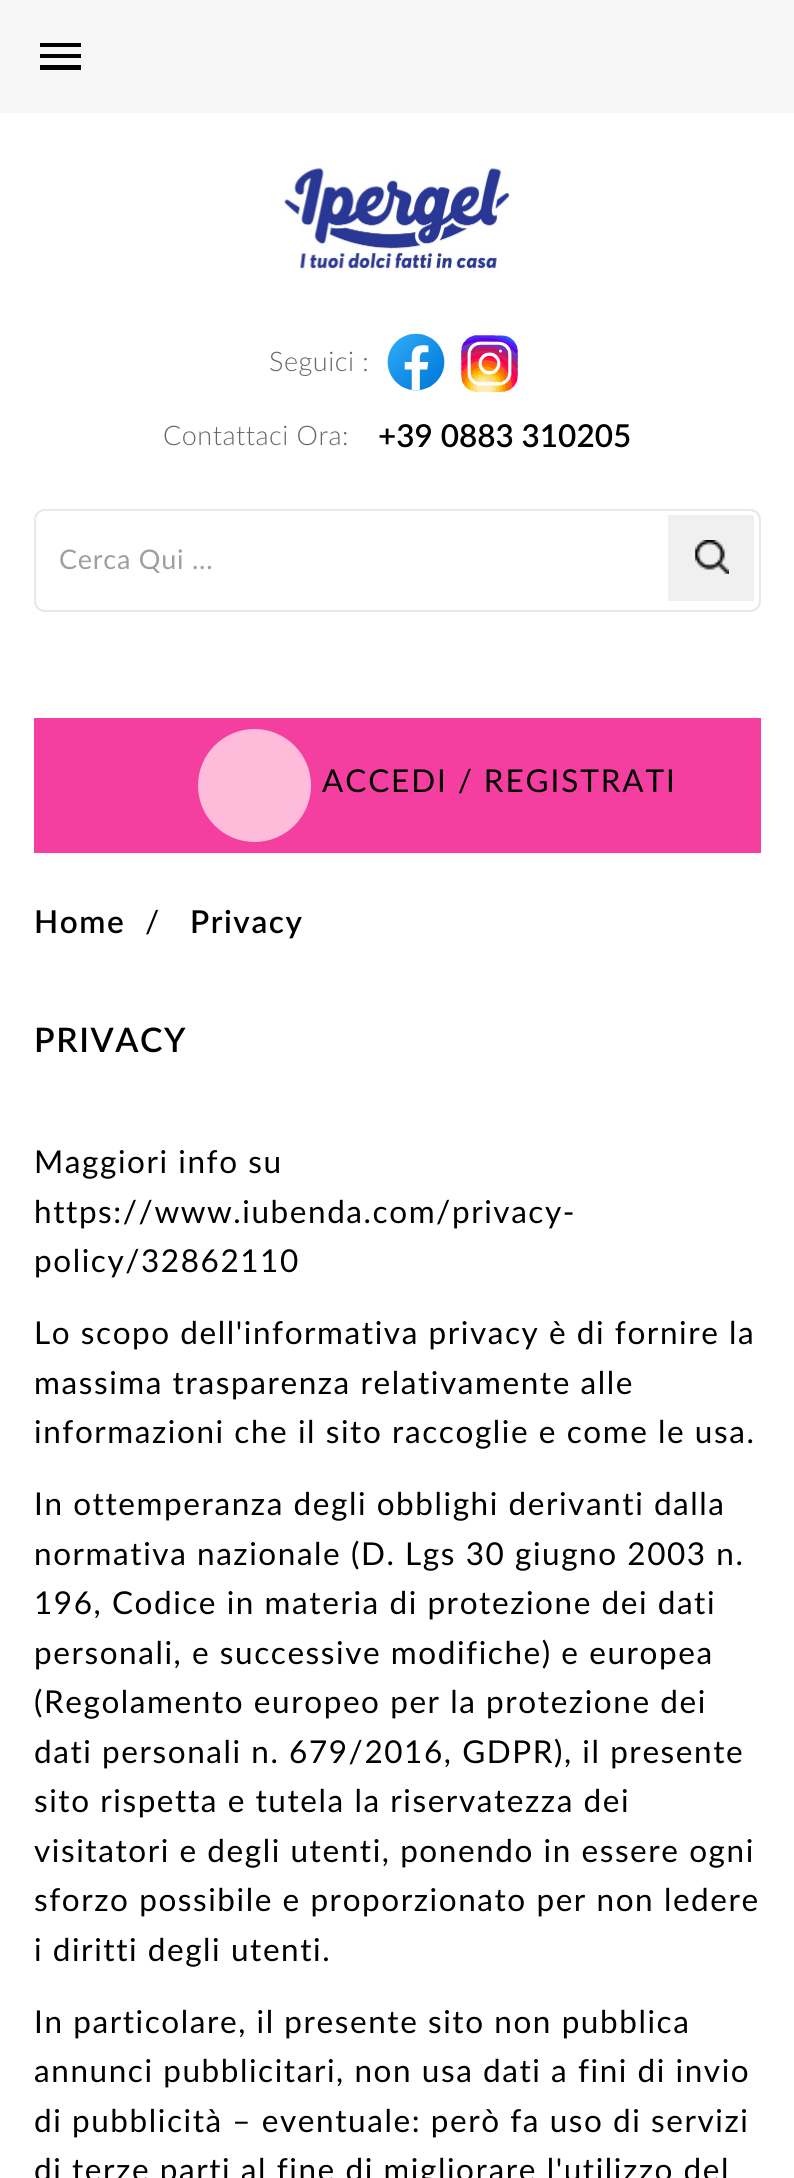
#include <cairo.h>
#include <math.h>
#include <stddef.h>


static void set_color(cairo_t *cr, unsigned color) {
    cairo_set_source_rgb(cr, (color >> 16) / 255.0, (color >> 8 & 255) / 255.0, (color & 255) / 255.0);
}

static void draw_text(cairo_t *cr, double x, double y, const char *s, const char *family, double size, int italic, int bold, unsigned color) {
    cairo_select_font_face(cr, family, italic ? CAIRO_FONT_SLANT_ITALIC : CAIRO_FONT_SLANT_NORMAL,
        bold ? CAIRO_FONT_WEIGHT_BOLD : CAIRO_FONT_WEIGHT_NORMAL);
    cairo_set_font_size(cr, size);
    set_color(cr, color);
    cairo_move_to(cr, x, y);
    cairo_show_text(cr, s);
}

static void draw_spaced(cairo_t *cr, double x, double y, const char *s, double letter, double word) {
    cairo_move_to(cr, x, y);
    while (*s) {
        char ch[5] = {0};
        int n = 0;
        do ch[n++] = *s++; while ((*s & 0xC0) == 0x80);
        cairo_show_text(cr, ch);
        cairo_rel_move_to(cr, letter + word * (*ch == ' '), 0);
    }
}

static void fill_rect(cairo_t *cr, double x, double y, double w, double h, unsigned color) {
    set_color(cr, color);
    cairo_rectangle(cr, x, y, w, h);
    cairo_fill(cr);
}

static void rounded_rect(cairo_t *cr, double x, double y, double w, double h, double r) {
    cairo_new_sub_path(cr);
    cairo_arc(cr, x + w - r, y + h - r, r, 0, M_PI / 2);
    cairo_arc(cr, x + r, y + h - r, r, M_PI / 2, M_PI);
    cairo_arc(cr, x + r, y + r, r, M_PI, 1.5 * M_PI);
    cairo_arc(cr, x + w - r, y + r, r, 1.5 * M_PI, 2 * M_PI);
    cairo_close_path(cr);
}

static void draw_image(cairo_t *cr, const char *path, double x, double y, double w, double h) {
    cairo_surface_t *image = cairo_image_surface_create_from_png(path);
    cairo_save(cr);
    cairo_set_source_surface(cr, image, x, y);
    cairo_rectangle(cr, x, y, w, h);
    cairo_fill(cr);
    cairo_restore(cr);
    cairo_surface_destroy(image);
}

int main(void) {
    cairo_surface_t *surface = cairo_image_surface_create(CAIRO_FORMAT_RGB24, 794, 2178);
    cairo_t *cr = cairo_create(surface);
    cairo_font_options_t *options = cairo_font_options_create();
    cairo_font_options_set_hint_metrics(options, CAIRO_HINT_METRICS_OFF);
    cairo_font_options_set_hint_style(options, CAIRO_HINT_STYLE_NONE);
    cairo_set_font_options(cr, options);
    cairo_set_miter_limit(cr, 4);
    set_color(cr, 0xFFFFFF);
    cairo_paint(cr);
    fill_rect(cr, 0, 0, 794, 113, 0xF7F7F7);
    set_color(cr, 0x000000);
    cairo_new_path(cr);
    cairo_move_to(cr, 40, 43);
    cairo_line_to(cr, 81, 43);
    cairo_line_to(cr, 81, 47);
    cairo_line_to(cr, 40, 47);
    cairo_close_path(cr);
    cairo_move_to(cr, 40, 58);
    cairo_line_to(cr, 40, 54);
    cairo_line_to(cr, 81, 54);
    cairo_line_to(cr, 81, 58);
    cairo_close_path(cr);
    cairo_move_to(cr, 40, 70);
    cairo_line_to(cr, 40, 65);
    cairo_line_to(cr, 81, 65);
    cairo_line_to(cr, 81, 70);
    cairo_close_path(cr);
    cairo_fill(cr);
    draw_image(cr, "assets/img1.png", 283, 166, 228, 104);
    cairo_select_font_face(cr, "Lato Light", CAIRO_FONT_SLANT_NORMAL, CAIRO_FONT_WEIGHT_NORMAL);
    cairo_set_font_size(cr, 27);
    set_color(cr, 0x666666);
    draw_spaced(cr, 269, 371, "Seguici :", 0.5, 0);
    draw_image(cr, "assets/img2.png", 387, 333, 58, 58);
    draw_image(cr, "assets/img3.png", 461, 335, 57, 57);
    draw_spaced(cr, 163, 445, "Contattaci Ora:", 0.5, 0);
    draw_text(cr, 378, 447, "+39 0883 310205", "Lato SemiBold", 31.5, 0, 0, 0x000000);
    rounded_rect(cr, 35, 510, 725, 101, 10);
    set_color(cr, 0xE7E7E7);
    cairo_stroke(cr);
    cairo_select_font_face(cr, "Lato", CAIRO_FONT_SLANT_NORMAL, CAIRO_FONT_WEIGHT_NORMAL);
    cairo_set_font_size(cr, 27);
    set_color(cr, 0x9F9F9F);
    draw_spaced(cr, 59, 569, "Cerca Qui ...", 0.75, 0);
    fill_rect(cr, 668, 515, 86, 86, 0xF0F0F0);
    draw_image(cr, "assets/img4.png", 695, 540, 34, 34);
    fill_rect(cr, 34, 718, 727, 135, 0xF43EA0);
    set_color(cr, 0xFEBCDA);
    cairo_arc(cr, 254.5, 785.5, 56.5, 0, 2 * M_PI);
    cairo_fill(cr);
    cairo_set_font_size(cr, 31.5);
    set_color(cr, 0x000000);
    draw_spaced(cr, 322, 792, "ACCEDI / REGISTRATI", 1.9, 0);
    cairo_select_font_face(cr, "Lato SemiBold", CAIRO_FONT_SLANT_NORMAL, CAIRO_FONT_WEIGHT_NORMAL);
    draw_spaced(cr, 34, 933, "Home", 1.57, 0);
    cairo_select_font_face(cr, "Lato", CAIRO_FONT_SLANT_NORMAL, CAIRO_FONT_WEIGHT_NORMAL);
    draw_spaced(cr, 145, 933, "/", 1.57, 0);
    cairo_select_font_face(cr, "Lato SemiBold", CAIRO_FONT_SLANT_NORMAL, CAIRO_FONT_WEIGHT_NORMAL);
    draw_spaced(cr, 190, 933, "Privacy", 1.57, 0);
    cairo_set_font_size(cr, 33.75);
    draw_spaced(cr, 34, 1052, "PRIVACY", 1.57, 0);
    cairo_select_font_face(cr, "Lato", CAIRO_FONT_SLANT_NORMAL, CAIRO_FONT_WEIGHT_NORMAL);
    cairo_set_font_size(cr, 31.5);
    draw_spaced(cr, 34, 1173, "Maggiori info su", 1.57, 0);
    draw_spaced(cr, 34, 1223, "https://www.iubenda.com/privacy-", 1.57, 0);
    draw_spaced(cr, 34, 1272, "policy/32862110", 1.57, 0);
    draw_spaced(cr, 34, 1344, "Lo scopo dell'informativa privacy è di fornire la", 1.57, 0);
    draw_spaced(cr, 34, 1394, "massima trasparenza relativamente alle", 1.57, 0);
    draw_spaced(cr, 34, 1443, "informazioni che il sito raccoglie e come le usa.", 1.57, 0);
    draw_spaced(cr, 34, 1515, "In ottemperanza degli obblighi derivanti dalla", 1.57, 0);
    draw_spaced(cr, 34, 1565, "normativa nazionale (D. Lgs 30 giugno 2003 n.", 1.57, 0);
    draw_spaced(cr, 34, 1614, "196, Codice in materia di protezione dei dati", 1.57, 0);
    draw_spaced(cr, 34, 1664, "personali, e successive modifiche) e europea", 1.57, 0);
    draw_spaced(cr, 34, 1713, "(Regolamento europeo per la protezione dei", 1.57, 0);
    draw_spaced(cr, 34, 1763, "dati personali n. 679/2016, GDPR), il presente", 1.57, 0);
    draw_spaced(cr, 34, 1812, "sito rispetta e tutela la riservatezza dei", 1.57, 0);
    draw_spaced(cr, 34, 1862, "visitatori e degli utenti, ponendo in essere ogni", 1.57, 0);
    draw_spaced(cr, 34, 1911, "sforzo possibile e proporzionato per non ledere", 1.57, 0);
    draw_spaced(cr, 34, 1961, "i diritti degli utenti.", 1.57, 0);
    draw_spaced(cr, 34, 2033, "In particolare, il presente sito non pubblica", 1.57, 0);
    draw_spaced(cr, 34, 2082, "annunci pubblicitari, non usa dati a fini di invio", 1.57, 0);
    draw_spaced(cr, 34, 2132, "di pubblicità – eventuale: però fa uso di servizi", 1.57, 0);
    draw_spaced(cr, 34, 2181, "di terze parti al fine di migliorare l'utilizzo del", 1.57, 0);
    cairo_surface_write_to_png(surface, "output.png");
    cairo_font_options_destroy(options);
    cairo_destroy(cr);
    cairo_surface_destroy(surface);
    return 0;
}
